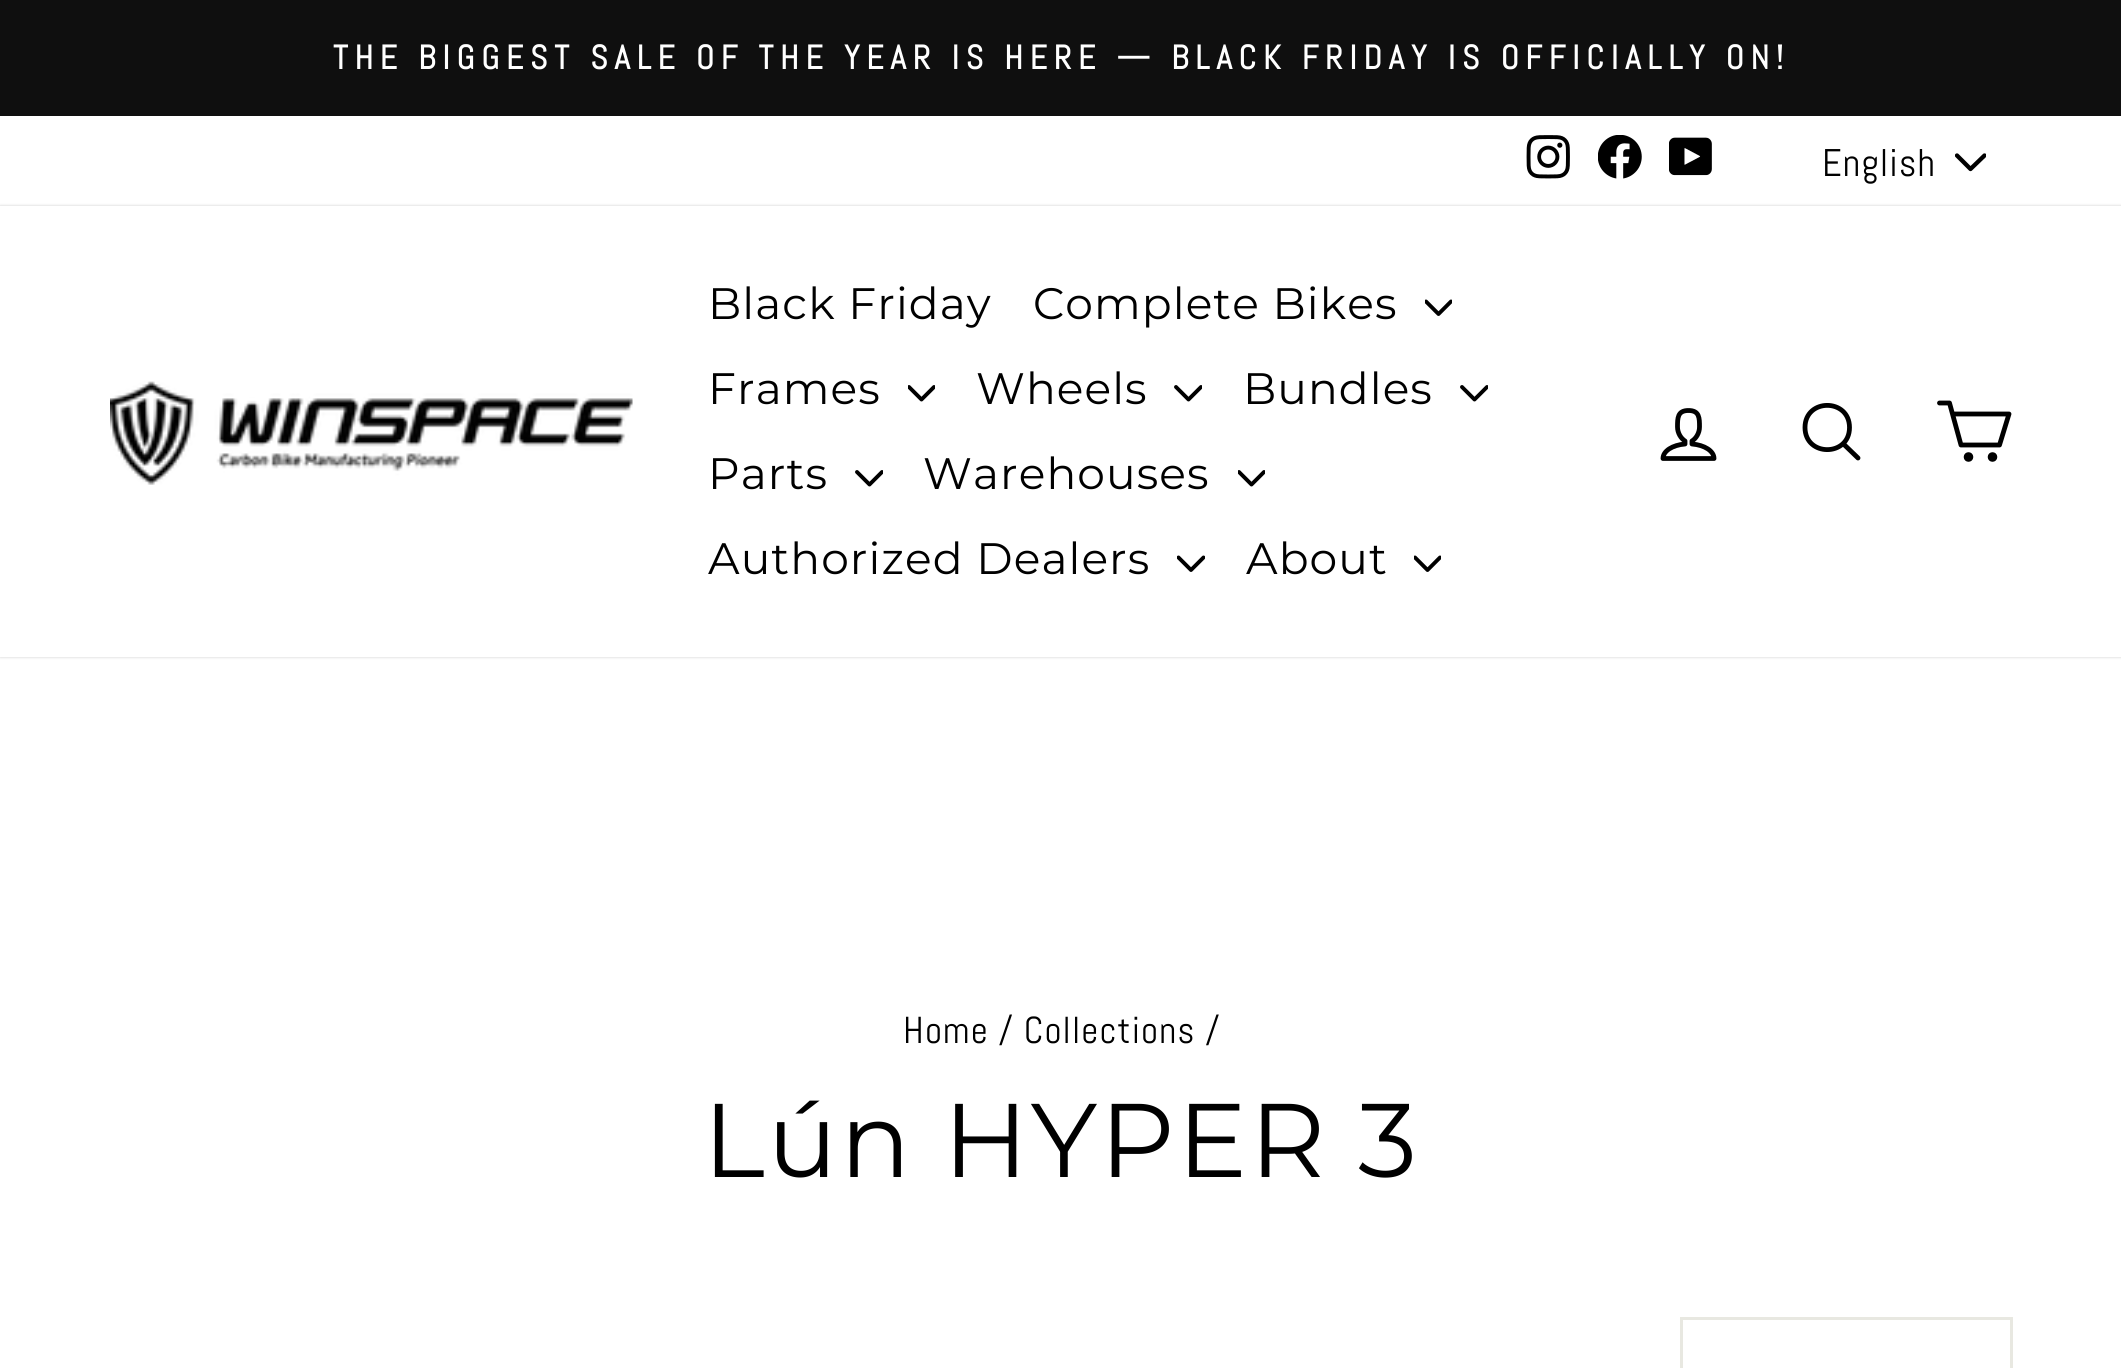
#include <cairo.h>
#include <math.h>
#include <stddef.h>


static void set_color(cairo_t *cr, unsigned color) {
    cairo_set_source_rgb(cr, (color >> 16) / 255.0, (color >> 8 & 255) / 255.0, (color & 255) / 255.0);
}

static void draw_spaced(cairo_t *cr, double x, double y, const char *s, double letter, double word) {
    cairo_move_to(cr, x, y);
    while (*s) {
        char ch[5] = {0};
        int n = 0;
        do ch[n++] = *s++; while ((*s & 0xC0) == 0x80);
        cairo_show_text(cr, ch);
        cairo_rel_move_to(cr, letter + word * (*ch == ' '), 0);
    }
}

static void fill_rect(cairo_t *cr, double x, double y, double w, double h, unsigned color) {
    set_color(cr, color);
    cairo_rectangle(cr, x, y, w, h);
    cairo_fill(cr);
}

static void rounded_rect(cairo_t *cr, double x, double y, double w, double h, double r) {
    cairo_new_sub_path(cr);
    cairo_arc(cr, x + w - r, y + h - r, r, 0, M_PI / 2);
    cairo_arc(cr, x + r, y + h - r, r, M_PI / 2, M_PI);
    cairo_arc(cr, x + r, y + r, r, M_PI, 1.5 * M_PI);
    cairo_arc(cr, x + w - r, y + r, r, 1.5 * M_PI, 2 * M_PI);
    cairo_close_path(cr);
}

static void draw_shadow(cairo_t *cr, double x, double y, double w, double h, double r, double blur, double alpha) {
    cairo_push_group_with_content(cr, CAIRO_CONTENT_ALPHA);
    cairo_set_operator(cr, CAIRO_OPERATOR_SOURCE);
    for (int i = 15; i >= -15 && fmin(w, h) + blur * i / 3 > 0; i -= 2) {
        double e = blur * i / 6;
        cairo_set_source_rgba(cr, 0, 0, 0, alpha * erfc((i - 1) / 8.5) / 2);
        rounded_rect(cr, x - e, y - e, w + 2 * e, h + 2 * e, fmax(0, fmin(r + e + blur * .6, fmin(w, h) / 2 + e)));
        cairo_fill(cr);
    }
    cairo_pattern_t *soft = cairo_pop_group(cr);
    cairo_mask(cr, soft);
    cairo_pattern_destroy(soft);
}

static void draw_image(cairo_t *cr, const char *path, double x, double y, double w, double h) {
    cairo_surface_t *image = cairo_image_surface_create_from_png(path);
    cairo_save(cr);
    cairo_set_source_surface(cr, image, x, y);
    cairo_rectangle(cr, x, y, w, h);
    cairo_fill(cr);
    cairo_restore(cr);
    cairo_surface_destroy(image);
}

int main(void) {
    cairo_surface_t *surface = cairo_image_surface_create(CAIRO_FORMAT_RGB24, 2121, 1368);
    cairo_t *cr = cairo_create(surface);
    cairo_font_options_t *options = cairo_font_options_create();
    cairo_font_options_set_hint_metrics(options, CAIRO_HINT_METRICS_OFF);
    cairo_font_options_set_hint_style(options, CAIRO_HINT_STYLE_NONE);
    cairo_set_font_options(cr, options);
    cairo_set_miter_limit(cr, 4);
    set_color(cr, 0xFFFFFF);
    cairo_paint(cr);
    fill_rect(cr, 0, 0, 2121, 116, 0x0F0F0F);
    cairo_select_font_face(cr, "Abel", CAIRO_FONT_SLANT_NORMAL, CAIRO_FONT_WEIGHT_BOLD);
    cairo_set_font_size(cr, 33.65);
    set_color(cr, 0xFFFFFF);
    draw_spaced(cr, 333, 69, "THE BIGGEST SALE OF THE YEAR IS HERE — BLACK FRIDAY IS OFFICIALLY ON!", 6.73, 0);
    draw_image(cr, "assets/img1.png", 1526, 135, 44, 44);
    draw_image(cr, "assets/img2.png", 1598, 135, 44, 44);
    draw_image(cr, "assets/img3.png", 1669, 137, 43, 39);
    cairo_select_font_face(cr, "Abel", CAIRO_FONT_SLANT_NORMAL, CAIRO_FONT_WEIGHT_NORMAL);
    cairo_set_font_size(cr, 38.5);
    set_color(cr, 0x000000);
    draw_spaced(cr, 1822, 176, "English", 1, 0);
    cairo_save(cr);
    cairo_rectangle(cr, 1955, 149, 31, 30);
    cairo_clip(cr);
    cairo_new_path(cr);
    cairo_move_to(cr, 1957, 155.5);
    cairo_line_to(cr, 1970.5, 169);
    cairo_line_to(cr, 1984.5, 155.5);
    cairo_set_line_width(cr, 4.3);
    cairo_set_line_cap(cr, CAIRO_LINE_CAP_ROUND);
    cairo_set_line_join(cr, CAIRO_LINE_JOIN_ROUND);
    cairo_stroke(cr);
    cairo_restore(cr);
    set_color(cr, 0x000000);
    draw_shadow(cr, 0, 206, 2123, 451, 0, 1.5, 0.2);
    fill_rect(cr, 0, 206, 2121, 451, 0xFFFFFF);
    draw_image(cr, "assets/img4.png", 110, 381, 523, 104);
    cairo_select_font_face(cr, "Montserrat", CAIRO_FONT_SLANT_NORMAL, CAIRO_FONT_WEIGHT_NORMAL);
    cairo_set_font_size(cr, 44);
    set_color(cr, 0x000000);
    draw_spaced(cr, 708, 319, "Black Friday", 1.1, 0);
    draw_spaced(cr, 1033, 319, "Complete Bikes", 1.1, 0);
    cairo_save(cr);
    cairo_rectangle(cr, 1425, 294, 27, 28);
    cairo_clip(cr);
    cairo_new_path(cr);
    cairo_move_to(cr, 1426, 301.5);
    cairo_line_to(cr, 1438.5, 314);
    cairo_line_to(cr, 1451, 301.5);
    cairo_set_line_width(cr, 3.9);
    cairo_set_line_cap(cr, CAIRO_LINE_CAP_ROUND);
    cairo_set_line_join(cr, CAIRO_LINE_JOIN_ROUND);
    cairo_stroke(cr);
    cairo_restore(cr);
    draw_spaced(cr, 708, 404, "Frames", 1.1, 0);
    cairo_save(cr);
    cairo_rectangle(cr, 908, 380, 27, 27);
    cairo_clip(cr);
    cairo_new_path(cr);
    cairo_move_to(cr, 909, 387);
    cairo_line_to(cr, 921.5, 399.5);
    cairo_line_to(cr, 934, 387);
    cairo_set_line_width(cr, 3.9);
    cairo_set_line_cap(cr, CAIRO_LINE_CAP_ROUND);
    cairo_set_line_join(cr, CAIRO_LINE_JOIN_ROUND);
    cairo_stroke(cr);
    cairo_restore(cr);
    draw_spaced(cr, 976, 404, "Wheels", 1.1, 0);
    cairo_save(cr);
    cairo_rectangle(cr, 1174, 380, 28, 27);
    cairo_clip(cr);
    cairo_new_path(cr);
    cairo_move_to(cr, 1176, 387);
    cairo_line_to(cr, 1188.5, 399.5);
    cairo_line_to(cr, 1201, 387);
    cairo_set_line_width(cr, 3.9);
    cairo_set_line_cap(cr, CAIRO_LINE_CAP_ROUND);
    cairo_set_line_join(cr, CAIRO_LINE_JOIN_ROUND);
    cairo_stroke(cr);
    cairo_restore(cr);
    draw_spaced(cr, 1243, 404, "Bundles", 1.1, 0);
    cairo_save(cr);
    cairo_rectangle(cr, 1460, 380, 28, 27);
    cairo_clip(cr);
    cairo_new_path(cr);
    cairo_move_to(cr, 1462, 387);
    cairo_line_to(cr, 1474.5, 399.5);
    cairo_line_to(cr, 1487, 387);
    cairo_set_line_width(cr, 3.9);
    cairo_set_line_cap(cr, CAIRO_LINE_CAP_ROUND);
    cairo_set_line_join(cr, CAIRO_LINE_JOIN_ROUND);
    cairo_stroke(cr);
    cairo_restore(cr);
    draw_spaced(cr, 708, 489, "Parts", 1.1, 0);
    cairo_save(cr);
    cairo_rectangle(cr, 855, 465, 28, 27);
    cairo_clip(cr);
    cairo_new_path(cr);
    cairo_move_to(cr, 857, 472);
    cairo_line_to(cr, 869.5, 484.5);
    cairo_line_to(cr, 882, 472);
    cairo_set_line_width(cr, 3.9);
    cairo_set_line_cap(cr, CAIRO_LINE_CAP_ROUND);
    cairo_set_line_join(cr, CAIRO_LINE_JOIN_ROUND);
    cairo_stroke(cr);
    cairo_restore(cr);
    draw_spaced(cr, 923, 489, "Warehouses", 1.1, 0);
    cairo_save(cr);
    cairo_rectangle(cr, 1238, 465, 27, 27);
    cairo_clip(cr);
    cairo_new_path(cr);
    cairo_move_to(cr, 1239, 472);
    cairo_line_to(cr, 1251.5, 484.5);
    cairo_line_to(cr, 1264, 472);
    cairo_set_line_width(cr, 3.9);
    cairo_set_line_cap(cr, CAIRO_LINE_CAP_ROUND);
    cairo_set_line_join(cr, CAIRO_LINE_JOIN_ROUND);
    cairo_stroke(cr);
    cairo_restore(cr);
    draw_spaced(cr, 708, 574, "Authorized Dealers", 1.1, 0);
    cairo_save(cr);
    cairo_rectangle(cr, 1177, 550, 28, 28);
    cairo_clip(cr);
    cairo_new_path(cr);
    cairo_move_to(cr, 1178.5, 557.5);
    cairo_line_to(cr, 1191, 570);
    cairo_line_to(cr, 1203.5, 557.5);
    cairo_set_line_width(cr, 3.9);
    cairo_set_line_cap(cr, CAIRO_LINE_CAP_ROUND);
    cairo_set_line_join(cr, CAIRO_LINE_JOIN_ROUND);
    cairo_stroke(cr);
    cairo_restore(cr);
    draw_spaced(cr, 1246, 574, "About", 1.1, 0);
    cairo_save(cr);
    cairo_rectangle(cr, 1414, 550, 27, 28);
    cairo_clip(cr);
    cairo_new_path(cr);
    cairo_move_to(cr, 1415, 557.5);
    cairo_line_to(cr, 1427.5, 570);
    cairo_line_to(cr, 1440, 557.5);
    cairo_set_line_width(cr, 3.9);
    cairo_set_line_cap(cr, CAIRO_LINE_CAP_ROUND);
    cairo_set_line_join(cr, CAIRO_LINE_JOIN_ROUND);
    cairo_stroke(cr);
    cairo_restore(cr);
    cairo_new_path(cr);
    cairo_move_to(cr, 1692, 444);
    cairo_line_to(cr, 1692, 441);
    cairo_curve_to(cr, 1696, 438.5, 1699.5, 433, 1699.5, 427);
    cairo_curve_to(cr, 1699.5, 418, 1699.5, 410.5, 1688.5, 410.5);
    cairo_curve_to(cr, 1677.5, 410.5, 1677.5, 418, 1677.5, 427);
    cairo_curve_to(cr, 1677.5, 433, 1681, 438.5, 1685, 441);
    cairo_line_to(cr, 1685, 444);
    cairo_curve_to(cr, 1672.5, 445, 1663, 451, 1663, 458.5);
    cairo_line_to(cr, 1714, 458.5);
    cairo_curve_to(cr, 1714, 451, 1704.5, 445, 1692, 444);
    cairo_close_path(cr);
    cairo_set_line_width(cr, 4.8);
    cairo_set_line_cap(cr, CAIRO_LINE_CAP_ROUND);
    cairo_set_line_join(cr, CAIRO_LINE_JOIN_ROUND);
    cairo_stroke(cr);
    cairo_new_path(cr);
    cairo_move_to(cr, 1849.5, 427.5);
    cairo_curve_to(cr, 1849.5, 457, 1805, 457, 1805, 427.5);
    cairo_curve_to(cr, 1805, 398, 1849.5, 398, 1849.5, 427.5);
    cairo_close_path(cr);
    cairo_move_to(cr, 1858, 458);
    cairo_line_to(cr, 1843.5, 444);
    cairo_stroke(cr);
    cairo_new_path(cr);
    cairo_move_to(cr, 1953, 414);
    cairo_line_to(cr, 2009, 414);
    cairo_line_to(cr, 1999.5, 445);
    cairo_line_to(cr, 1961, 445);
    cairo_line_to(cr, 1949.5, 403);
    cairo_line_to(cr, 1939.5, 403);
    cairo_stroke(cr);
    cairo_arc(cr, 1968.5, 457, 2.4, 0, 2 * M_PI);
    cairo_set_line_cap(cr, CAIRO_LINE_CAP_BUTT);
    cairo_set_line_join(cr, CAIRO_LINE_JOIN_MITER);
    cairo_stroke(cr);
    cairo_arc(cr, 1992.5, 457, 2.4, 0, 2 * M_PI);
    cairo_stroke(cr);
    cairo_select_font_face(cr, "Abel", CAIRO_FONT_SLANT_NORMAL, CAIRO_FONT_WEIGHT_NORMAL);
    cairo_set_font_size(cr, 37.5);
    draw_spaced(cr, 903, 1043, "Home / Collections /", 1.1, 0);
    cairo_select_font_face(cr, "Montserrat", CAIRO_FONT_SLANT_NORMAL, CAIRO_FONT_WEIGHT_NORMAL);
    cairo_set_font_size(cr, 104.5);
    draw_spaced(cr, 703, 1177, "Lún HYPER 3", 2.6, 0);
    cairo_rectangle(cr, 1681.5, 1318.5, 330, 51);
    set_color(cr, 0xE8E8E1);
    cairo_set_line_width(cr, 3);
    cairo_stroke(cr);
    cairo_surface_write_to_png(surface, "output.png");
    cairo_font_options_destroy(options);
    cairo_destroy(cr);
    cairo_surface_destroy(surface);
    return 0;
}
